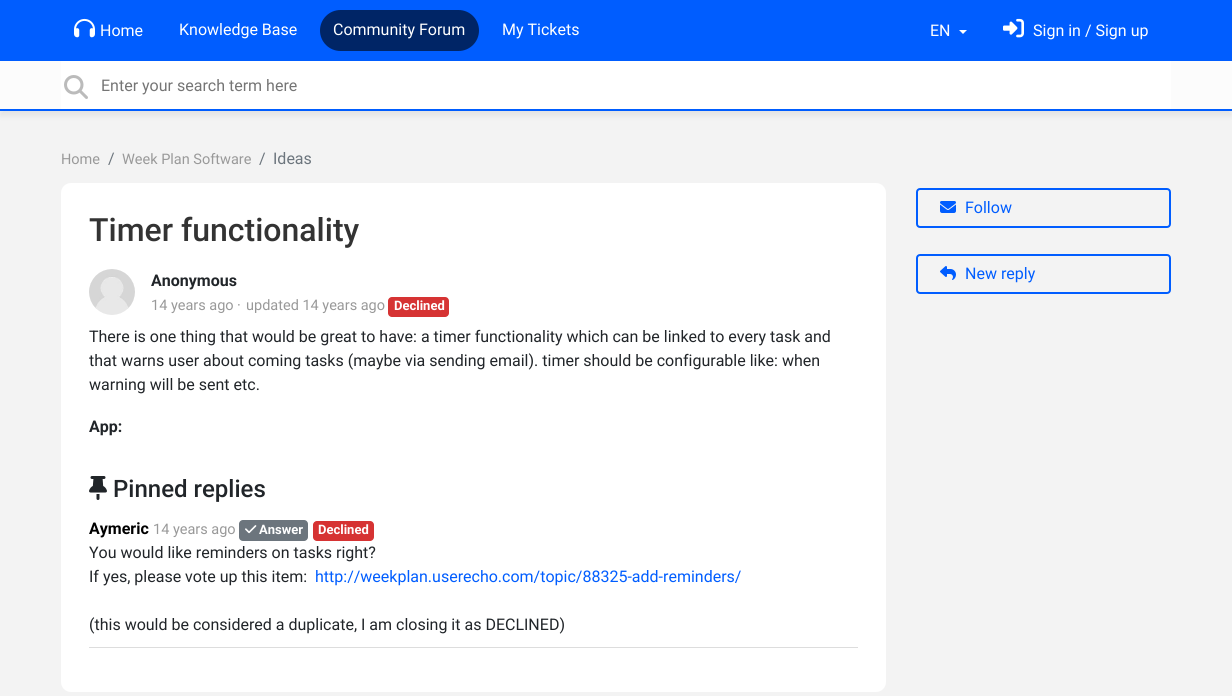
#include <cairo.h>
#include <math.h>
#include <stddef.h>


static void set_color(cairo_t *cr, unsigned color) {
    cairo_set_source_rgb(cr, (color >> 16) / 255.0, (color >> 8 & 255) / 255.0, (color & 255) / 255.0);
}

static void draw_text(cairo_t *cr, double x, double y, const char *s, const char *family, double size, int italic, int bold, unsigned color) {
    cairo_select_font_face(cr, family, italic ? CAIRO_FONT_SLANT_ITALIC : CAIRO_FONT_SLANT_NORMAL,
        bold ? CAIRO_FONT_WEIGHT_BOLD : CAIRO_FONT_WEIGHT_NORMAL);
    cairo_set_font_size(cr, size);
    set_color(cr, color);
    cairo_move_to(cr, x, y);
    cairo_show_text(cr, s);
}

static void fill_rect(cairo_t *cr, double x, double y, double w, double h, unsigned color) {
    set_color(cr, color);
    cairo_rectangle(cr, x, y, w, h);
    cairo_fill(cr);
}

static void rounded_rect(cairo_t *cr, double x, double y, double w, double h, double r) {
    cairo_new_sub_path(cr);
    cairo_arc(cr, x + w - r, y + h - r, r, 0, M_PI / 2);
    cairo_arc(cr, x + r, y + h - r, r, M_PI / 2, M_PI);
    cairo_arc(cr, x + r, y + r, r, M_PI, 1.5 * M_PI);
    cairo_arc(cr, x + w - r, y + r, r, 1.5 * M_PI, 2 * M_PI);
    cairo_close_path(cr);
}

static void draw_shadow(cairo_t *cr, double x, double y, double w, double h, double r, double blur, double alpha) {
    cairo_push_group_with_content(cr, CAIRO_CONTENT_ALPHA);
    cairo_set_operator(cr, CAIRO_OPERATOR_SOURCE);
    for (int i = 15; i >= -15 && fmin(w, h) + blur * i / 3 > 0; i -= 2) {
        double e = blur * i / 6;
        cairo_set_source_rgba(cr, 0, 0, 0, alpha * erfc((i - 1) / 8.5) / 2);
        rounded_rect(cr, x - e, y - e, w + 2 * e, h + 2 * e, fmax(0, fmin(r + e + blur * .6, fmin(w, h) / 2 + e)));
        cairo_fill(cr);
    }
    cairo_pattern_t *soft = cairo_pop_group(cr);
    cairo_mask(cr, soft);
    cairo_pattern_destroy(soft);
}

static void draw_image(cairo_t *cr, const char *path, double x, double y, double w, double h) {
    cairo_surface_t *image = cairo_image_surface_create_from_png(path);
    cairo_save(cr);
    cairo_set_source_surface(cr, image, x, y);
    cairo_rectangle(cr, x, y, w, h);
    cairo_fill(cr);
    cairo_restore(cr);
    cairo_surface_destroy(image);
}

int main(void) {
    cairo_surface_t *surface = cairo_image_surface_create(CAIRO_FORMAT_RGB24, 1232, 696);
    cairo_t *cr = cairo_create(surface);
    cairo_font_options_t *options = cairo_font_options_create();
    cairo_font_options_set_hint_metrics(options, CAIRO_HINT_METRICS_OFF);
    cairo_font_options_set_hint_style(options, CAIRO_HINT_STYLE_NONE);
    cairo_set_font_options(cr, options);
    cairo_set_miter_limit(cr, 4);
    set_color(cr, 0xF3F3F3);
    cairo_paint(cr);
    fill_rect(cr, 0, 0, 1232, 61, 0x005DFF);
    draw_image(cr, "assets/img1.png", 74, 18, 21, 20);
    draw_text(cr, 100, 36, "Home", "Roboto", 16, 0, 0, 0xFFFFFF);
    draw_text(cr, 179, 35, "Knowledge Base", "Roboto", 16, 0, 0, 0xFFFFFF);
    set_color(cr, 0x002566);
    rounded_rect(cr, 320, 10, 159, 41, 20.5);
    cairo_fill(cr);
    draw_text(cr, 333, 35, "Community Forum", "Roboto", 16, 0, 0, 0xFFFFFF);
    draw_text(cr, 502, 35, "My Tickets", "Roboto", 16, 0, 0, 0xFFFFFF);
    draw_text(cr, 930, 36, "EN", "Roboto", 16, 0, 0, 0xFFFFFF);
    cairo_new_path(cr);
    cairo_move_to(cr, 959, 30);
    cairo_line_to(cr, 967, 30);
    cairo_line_to(cr, 963, 34);
    cairo_close_path(cr);
    cairo_fill(cr);
    draw_image(cr, "assets/img2.png", 1003, 18, 21, 20);
    draw_text(cr, 1033, 36, "Sign in / Sign up", "Roboto", 16, 0, 0, 0xFFFFFF);
    set_color(cr, 0x646464);
    draw_shadow(cr, 0, 66, 1232, 50, 0, 2.5, 0.1);
    fill_rect(cr, 0, 61, 1232, 48, 0xFCFCFC);
    fill_rect(cr, 0, 109, 1232, 2, 0x005DFF);
    fill_rect(cr, 61, 61, 1110, 48, 0xFFFFFF);
    draw_image(cr, "assets/img3.png", 64, 75, 24, 24);
    draw_text(cr, 101, 91, "Enter your search term here", "Roboto", 16, 0, 0, 0x757575);
    draw_text(cr, 61, 164, "Home", "Roboto", 14.5, 0, 0, 0x999999);
    draw_text(cr, 108, 164, "/", "Roboto", 16, 0, 0, 0x6C757D);
    draw_text(cr, 122, 164, "Week Plan Software", "Roboto", 14.5, 0, 0, 0x999999);
    draw_text(cr, 259, 164, "/", "Roboto", 16, 0, 0, 0x6C757D);
    draw_text(cr, 273, 164, "Ideas", "Roboto", 16, 0, 0, 0x6C757D);
    set_color(cr, 0xFFFFFF);
    rounded_rect(cr, 61, 183, 825, 509, 10);
    cairo_fill(cr);
    draw_text(cr, 89, 241, "Timer functionality", "Roboto Medium", 32, 0, 0, 0x333333);
    draw_image(cr, "assets/img4.png", 89, 269, 46, 46);
    draw_text(cr, 151, 286, "Anonymous", "Roboto", 16, 0, 1, 0x212529);
    draw_text(cr, 151, 310, "14 years ago", "Roboto", 14.5, 0, 0, 0x999999);
    draw_text(cr, 237, 310, "·", "Roboto", 14.5, 0, 0, 0x999999);
    draw_text(cr, 246, 310, "updated 14 years ago", "Roboto", 14.5, 0, 0, 0x999999);
    set_color(cr, 0xD63333);
    rounded_rect(cr, 388, 297, 61, 20, 4);
    cairo_fill(cr);
    draw_text(cr, 394, 310, "Declined", "Roboto", 13, 0, 1, 0xFFFFFF);
    draw_text(cr, 89, 342, "There is one thing that would be great to have: a timer functionality which can be linked to every task and", "Roboto", 16, 0, 0, 0x212529);
    draw_text(cr, 89, 366, "that warns user about coming tasks (maybe via sending email). timer should be configurable like: when", "Roboto", 16, 0, 0, 0x212529);
    draw_text(cr, 89, 390, "warning will be sent etc.", "Roboto", 16, 0, 0, 0x212529);
    draw_text(cr, 89, 432, "App:", "Roboto", 16, 0, 1, 0x212529);
    draw_image(cr, "assets/img5.png", 89, 476, 18, 24);
    draw_text(cr, 113, 497, "Pinned replies", "Roboto Medium", 24, 0, 0, 0x212529);
    fill_rect(cr, 89, 647, 769, 1, 0xDDDDDD);
    draw_text(cr, 89, 534, "Aymeric", "Roboto", 16, 0, 1, 0x000000);
    draw_text(cr, 153, 534, "14 years ago", "Roboto", 14.5, 0, 0, 0x999999);
    set_color(cr, 0x6C757D);
    rounded_rect(cr, 239, 520, 69, 21, 4);
    cairo_fill(cr);
    draw_image(cr, "assets/img6.png", 245, 525, 12, 9);
    draw_text(cr, 259, 534, "Answer", "Roboto", 13, 0, 1, 0xFFFFFF);
    set_color(cr, 0xD63333);
    rounded_rect(cr, 313, 521, 61, 20, 4);
    cairo_fill(cr);
    draw_text(cr, 318, 534, "Declined", "Roboto", 13, 0, 1, 0xFFFFFF);
    draw_text(cr, 89, 558, "You would like reminders on tasks right?", "Roboto", 16, 0, 0, 0x212529);
    draw_text(cr, 89, 582, "If yes, please vote up this item:", "Roboto", 16, 0, 0, 0x212529);
    draw_text(cr, 315, 582, "http://weekplan.userecho.com/topic/88325-add-reminders/", "Roboto", 16, 0, 0, 0x005DFF);
    draw_text(cr, 89, 630, "(this would be considered a duplicate, I am closing it as DECLINED)", "Roboto", 16, 0, 0, 0x212529);
    rounded_rect(cr, 917, 189, 253, 38, 3);
    set_color(cr, 0x005DFF);
    cairo_stroke(cr);
    draw_image(cr, "assets/img7.png", 940, 201, 16, 12);
    draw_text(cr, 965, 213, "Follow", "Roboto", 16, 0, 0, 0x005DFF);
    rounded_rect(cr, 917, 255, 253, 38, 3);
    cairo_stroke(cr);
    draw_image(cr, "assets/img8.png", 940, 266, 16, 14);
    draw_text(cr, 965, 279, "New reply", "Roboto", 16, 0, 0, 0x005DFF);
    cairo_surface_write_to_png(surface, "output.png");
    cairo_font_options_destroy(options);
    cairo_destroy(cr);
    cairo_surface_destroy(surface);
    return 0;
}
